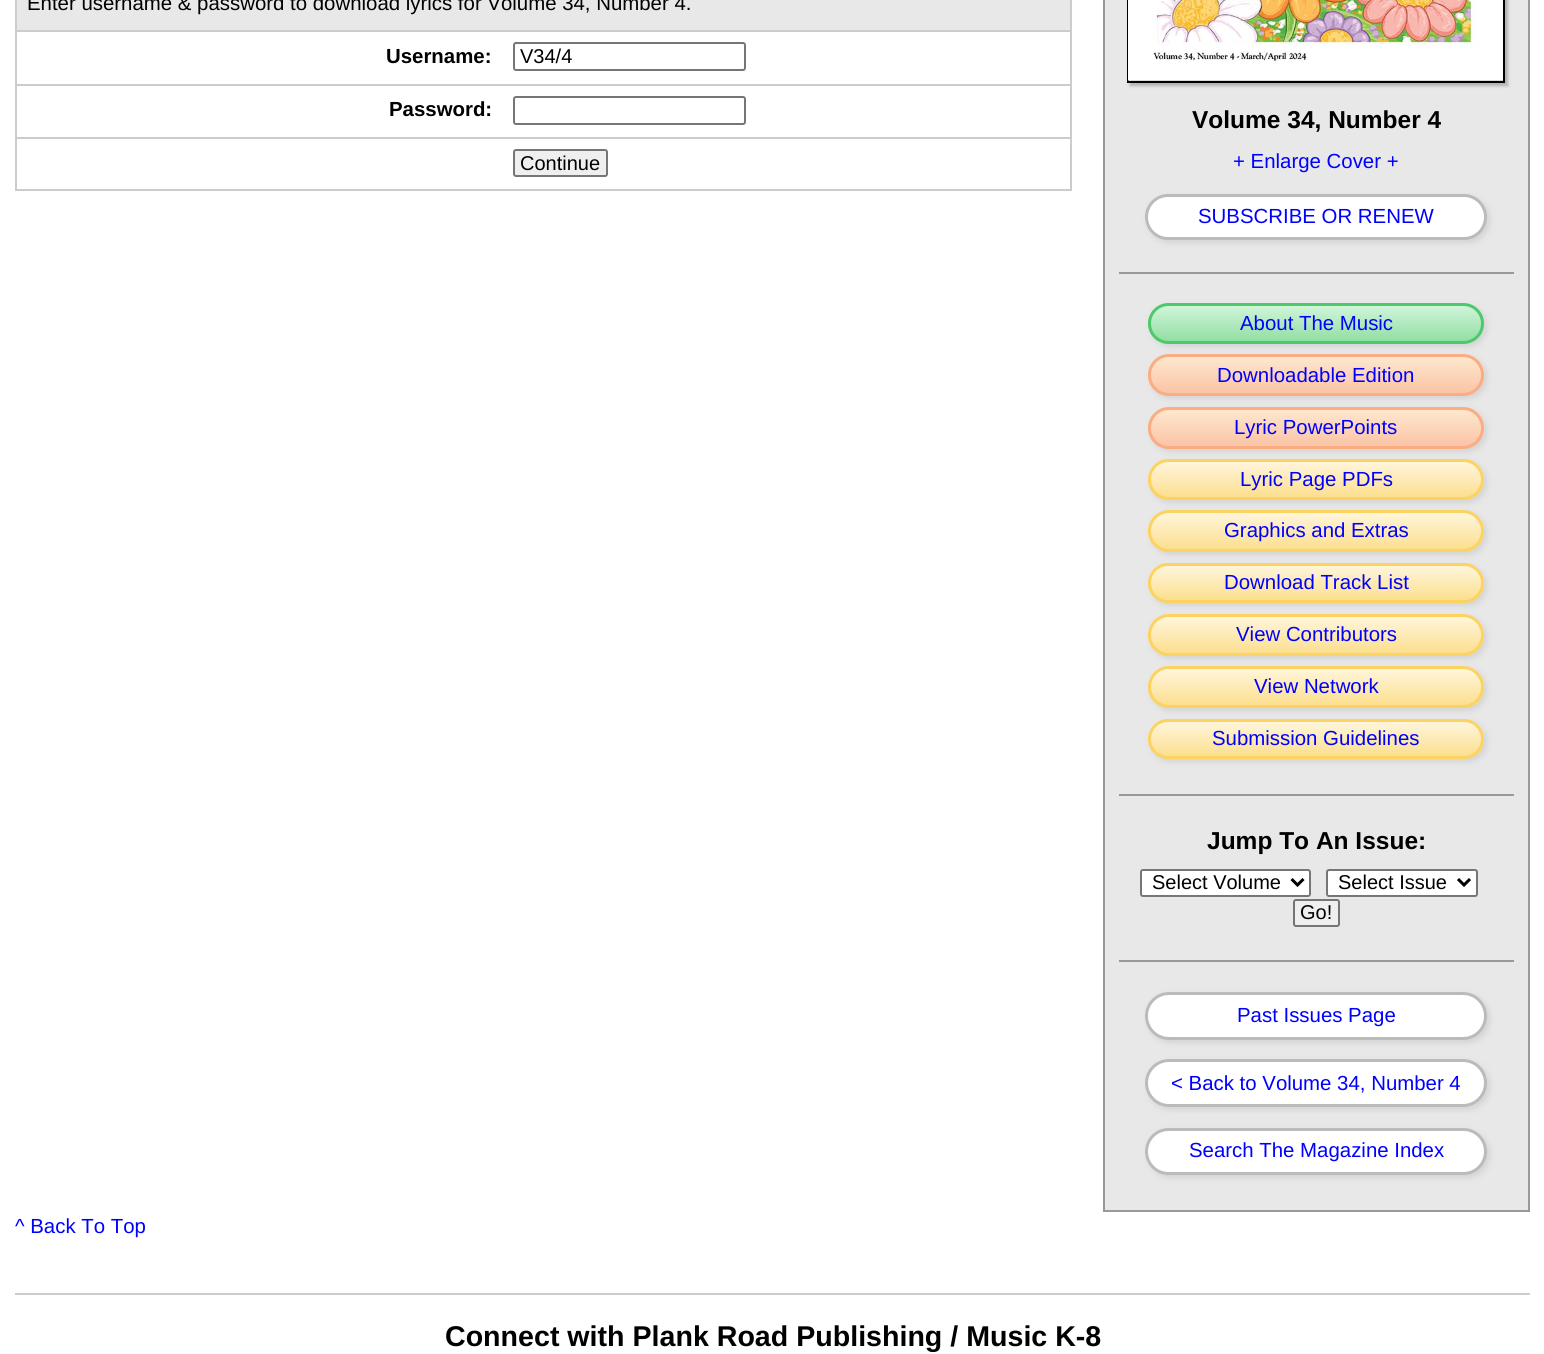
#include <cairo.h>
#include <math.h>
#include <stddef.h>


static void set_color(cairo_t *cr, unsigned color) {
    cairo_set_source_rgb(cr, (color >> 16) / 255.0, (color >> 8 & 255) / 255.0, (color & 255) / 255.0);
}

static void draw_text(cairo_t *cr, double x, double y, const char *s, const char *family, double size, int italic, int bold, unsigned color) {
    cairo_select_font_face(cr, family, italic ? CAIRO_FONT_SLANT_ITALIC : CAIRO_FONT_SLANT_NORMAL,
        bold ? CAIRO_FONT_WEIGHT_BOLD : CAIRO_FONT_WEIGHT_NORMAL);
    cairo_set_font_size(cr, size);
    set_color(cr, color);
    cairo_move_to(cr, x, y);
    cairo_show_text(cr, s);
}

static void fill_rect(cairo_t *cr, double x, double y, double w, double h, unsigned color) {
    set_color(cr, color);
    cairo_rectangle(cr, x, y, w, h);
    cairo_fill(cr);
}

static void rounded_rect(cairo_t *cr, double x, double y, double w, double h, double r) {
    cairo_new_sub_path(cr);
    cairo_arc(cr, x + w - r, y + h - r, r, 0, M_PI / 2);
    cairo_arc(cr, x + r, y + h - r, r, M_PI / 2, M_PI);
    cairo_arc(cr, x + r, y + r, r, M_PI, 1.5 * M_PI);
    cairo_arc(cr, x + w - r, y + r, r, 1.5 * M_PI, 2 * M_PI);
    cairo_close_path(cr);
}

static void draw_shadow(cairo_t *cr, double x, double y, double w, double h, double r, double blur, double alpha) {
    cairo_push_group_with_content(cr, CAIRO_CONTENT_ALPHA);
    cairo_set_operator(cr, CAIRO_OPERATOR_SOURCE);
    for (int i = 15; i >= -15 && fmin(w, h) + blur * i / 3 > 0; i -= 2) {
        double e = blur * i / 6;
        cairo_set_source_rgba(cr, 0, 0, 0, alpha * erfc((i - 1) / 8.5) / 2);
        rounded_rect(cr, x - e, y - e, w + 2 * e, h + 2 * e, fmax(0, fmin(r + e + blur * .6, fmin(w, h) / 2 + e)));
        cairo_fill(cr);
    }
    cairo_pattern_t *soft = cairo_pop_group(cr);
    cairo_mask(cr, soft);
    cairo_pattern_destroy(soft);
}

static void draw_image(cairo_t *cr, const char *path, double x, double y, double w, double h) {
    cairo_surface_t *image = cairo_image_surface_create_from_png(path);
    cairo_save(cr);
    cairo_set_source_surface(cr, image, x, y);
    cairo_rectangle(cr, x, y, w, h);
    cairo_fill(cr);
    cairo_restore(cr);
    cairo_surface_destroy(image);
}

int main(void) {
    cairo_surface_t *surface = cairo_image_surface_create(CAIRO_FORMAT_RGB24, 1544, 1354);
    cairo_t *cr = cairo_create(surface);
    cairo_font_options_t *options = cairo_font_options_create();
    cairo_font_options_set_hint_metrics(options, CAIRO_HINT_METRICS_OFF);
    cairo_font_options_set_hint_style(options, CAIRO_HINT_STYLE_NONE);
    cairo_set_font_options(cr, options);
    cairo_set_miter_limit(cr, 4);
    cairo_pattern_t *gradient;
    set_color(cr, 0xFFFFFF);
    cairo_paint(cr);
    fill_rect(cr, 1070, 0, 2, 191, 0xCCCCCC);
    fill_rect(cr, 15, 0, 2, 191, 0xCCCCCC);
    fill_rect(cr, 17, 0, 1053, 30, 0xE8E8E8);
    fill_rect(cr, 17, 30, 1053, 2, 0xCCCCCC);
    draw_text(cr, 27, 10, "Enter username & password to download lyrics for Volume 34, Number 4.", "Liberation Sans", 20.4, 0, 0, 0x000000);
    fill_rect(cr, 17, 84, 1053, 2, 0xCCCCCC);
    draw_text(cr, 386, 63, "Username:", "Liberation Sans", 20.4, 0, 1, 0x000000);
    rounded_rect(cr, 514, 43, 231, 27, 2);
    set_color(cr, 0x767676);
    cairo_stroke(cr);
    draw_text(cr, 520, 63, "V34/4", "Liberation Sans", 20, 0, 0, 0x000000);
    fill_rect(cr, 17, 137, 1053, 2, 0xCCCCCC);
    draw_text(cr, 389, 116, "Password:", "Liberation Sans", 20.4, 0, 1, 0x000000);
    rounded_rect(cr, 514, 97, 231, 27, 2);
    set_color(cr, 0x767676);
    cairo_stroke(cr);
    fill_rect(cr, 17, 189, 1053, 2, 0xCCCCCC);
    set_color(cr, 0xEFEFEF);
    rounded_rect(cr, 514, 150, 93, 26, 2);
    cairo_fill_preserve(cr);
    set_color(cr, 0x767676);
    cairo_stroke(cr);
    draw_text(cr, 520, 170, "Continue", "Liberation Sans", 20, 0, 0, 0x000000);
    set_color(cr, 0xE8E8E8);
    cairo_rectangle(cr, 1104, -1, 425, 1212);
    cairo_fill_preserve(cr);
    set_color(cr, 0x999999);
    cairo_stroke(cr);
    set_color(cr, 0xB1B1B1);
    draw_shadow(cr, 1130, -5, 378, 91, 0, 1.5, 1);
    cairo_rectangle(cr, 1128, -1, 376, 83);
    set_color(cr, 0x000000);
    cairo_stroke(cr);
    draw_image(cr, "assets/img1.png", 1128, 0, 375, 81);
    draw_text(cr, 1192, 128, "Volume 34, Number 4", "Liberation Sans", 24.5, 0, 1, 0x000000);
    draw_text(cr, 1233, 168, "+ Enlarge Cover +", "Liberation Sans", 20.4, 0, 0, 0x0000FF);
    set_color(cr, 0xD4D4D4);
    draw_shadow(cr, 1148, 197, 342, 46, 23, 3, 1);
    set_color(cr, 0xFFFFFF);
    rounded_rect(cr, 1146.5, 195.5, 339, 43, 21.5);
    cairo_fill_preserve(cr);
    set_color(cr, 0xBBBBBB);
    cairo_set_line_width(cr, 3);
    cairo_stroke(cr);
    draw_text(cr, 1198, 223, "SUBSCRIBE OR RENEW", "Liberation Sans", 20.4, 0, 0, 0x0000FF);
    fill_rect(cr, 1119, 272, 395, 2, 0x999999);
    set_color(cr, 0xD4D4D4);
    draw_shadow(cr, 1151, 306, 336, 41, 20.5, 3, 1);
    cairo_save(cr);
    rounded_rect(cr, 1148, 303, 336, 41, 20.5);
    cairo_clip(cr);
    gradient = cairo_pattern_create_linear(1316, 306, 1316, 341);
    cairo_pattern_add_color_stop_rgba(gradient, 0, 0.816, 0.961, 0.855, 1);
    cairo_pattern_add_color_stop_rgba(gradient, 1, 0.573, 0.871, 0.639, 1);
    cairo_set_source(cr, gradient);
    cairo_pattern_destroy(gradient);
    cairo_rectangle(cr, 1148, 306, 336, 35);
    cairo_fill(cr);
    cairo_restore(cr);
    rounded_rect(cr, 1149.5, 304.5, 333, 38, 19);
    set_color(cr, 0x4DC96B);
    cairo_stroke(cr);
    draw_text(cr, 1240, 330, "About The Music", "Liberation Sans", 20.4, 0, 0, 0x0000FF);
    set_color(cr, 0xD4D4D4);
    draw_shadow(cr, 1151, 357, 336, 42, 21, 3, 1);
    cairo_save(cr);
    rounded_rect(cr, 1148, 354, 336, 42, 21);
    cairo_clip(cr);
    gradient = cairo_pattern_create_linear(1316, 357, 1316, 393);
    cairo_pattern_add_color_stop_rgba(gradient, 0, 0.996, 0.906, 0.808, 1);
    cairo_pattern_add_color_stop_rgba(gradient, 1, 0.984, 0.769, 0.651, 1);
    cairo_set_source(cr, gradient);
    cairo_pattern_destroy(gradient);
    cairo_rectangle(cr, 1148, 357, 336, 36);
    cairo_fill(cr);
    cairo_restore(cr);
    rounded_rect(cr, 1149.5, 355.5, 333, 39, 19.5);
    set_color(cr, 0xFBAC82);
    cairo_stroke(cr);
    draw_text(cr, 1217, 382, "Downloadable Edition", "Liberation Sans", 20.4, 0, 0, 0x0000FF);
    set_color(cr, 0xD4D4D4);
    draw_shadow(cr, 1151, 410, 336, 42, 21, 3, 1);
    cairo_save(cr);
    rounded_rect(cr, 1148, 407, 336, 42, 21);
    cairo_clip(cr);
    gradient = cairo_pattern_create_linear(1316, 410, 1316, 446);
    cairo_pattern_add_color_stop_rgba(gradient, 0, 0.996, 0.906, 0.808, 1);
    cairo_pattern_add_color_stop_rgba(gradient, 1, 0.984, 0.769, 0.651, 1);
    cairo_set_source(cr, gradient);
    cairo_pattern_destroy(gradient);
    cairo_rectangle(cr, 1148, 410, 336, 36);
    cairo_fill(cr);
    cairo_restore(cr);
    rounded_rect(cr, 1149.5, 408.5, 333, 39, 19.5);
    set_color(cr, 0xFBAC82);
    cairo_stroke(cr);
    draw_text(cr, 1234, 434, "Lyric PowerPoints", "Liberation Sans", 20.4, 0, 0, 0x0000FF);
    set_color(cr, 0xD4D4D4);
    draw_shadow(cr, 1151, 462, 336, 41, 20.5, 3, 1);
    cairo_save(cr);
    rounded_rect(cr, 1148, 459, 336, 41, 20.5);
    cairo_clip(cr);
    gradient = cairo_pattern_create_linear(1316, 462, 1316, 497);
    cairo_pattern_add_color_stop_rgba(gradient, 0, 1, 0.961, 0.859, 1);
    cairo_pattern_add_color_stop_rgba(gradient, 1, 0.988, 0.875, 0.561, 1);
    cairo_set_source(cr, gradient);
    cairo_pattern_destroy(gradient);
    cairo_rectangle(cr, 1148, 462, 336, 35);
    cairo_fill(cr);
    cairo_restore(cr);
    rounded_rect(cr, 1149.5, 460.5, 333, 38, 19);
    set_color(cr, 0xFCD260);
    cairo_stroke(cr);
    draw_text(cr, 1240, 486, "Lyric Page PDFs", "Liberation Sans", 20.4, 0, 0, 0x0000FF);
    set_color(cr, 0xD4D4D4);
    draw_shadow(cr, 1151, 513, 336, 42, 21, 3, 1);
    cairo_save(cr);
    rounded_rect(cr, 1148, 510, 336, 42, 21);
    cairo_clip(cr);
    gradient = cairo_pattern_create_linear(1316, 513, 1316, 549);
    cairo_pattern_add_color_stop_rgba(gradient, 0, 1, 0.961, 0.859, 1);
    cairo_pattern_add_color_stop_rgba(gradient, 1, 0.988, 0.875, 0.561, 1);
    cairo_set_source(cr, gradient);
    cairo_pattern_destroy(gradient);
    cairo_rectangle(cr, 1148, 513, 336, 36);
    cairo_fill(cr);
    cairo_restore(cr);
    rounded_rect(cr, 1149.5, 511.5, 333, 39, 19.5);
    set_color(cr, 0xFCD260);
    cairo_stroke(cr);
    draw_text(cr, 1224, 537, "Graphics and Extras", "Liberation Sans", 20.4, 0, 0, 0x0000FF);
    set_color(cr, 0xD4D4D4);
    draw_shadow(cr, 1151, 566, 336, 40, 20, 3, 1);
    cairo_save(cr);
    rounded_rect(cr, 1148, 563, 336, 40, 20);
    cairo_clip(cr);
    gradient = cairo_pattern_create_linear(1316, 566, 1316, 600);
    cairo_pattern_add_color_stop_rgba(gradient, 0, 1, 0.961, 0.859, 1);
    cairo_pattern_add_color_stop_rgba(gradient, 1, 0.988, 0.875, 0.561, 1);
    cairo_set_source(cr, gradient);
    cairo_pattern_destroy(gradient);
    cairo_rectangle(cr, 1148, 566, 336, 34);
    cairo_fill(cr);
    cairo_restore(cr);
    rounded_rect(cr, 1149.5, 564.5, 333, 37, 18.5);
    set_color(cr, 0xFCD260);
    cairo_stroke(cr);
    draw_text(cr, 1224, 589, "Download Track List", "Liberation Sans", 20.4, 0, 0, 0x0000FF);
    set_color(cr, 0xD4D4D4);
    draw_shadow(cr, 1151, 617, 336, 42, 21, 3, 1);
    cairo_save(cr);
    rounded_rect(cr, 1148, 614, 336, 42, 21);
    cairo_clip(cr);
    gradient = cairo_pattern_create_linear(1316, 617, 1316, 653);
    cairo_pattern_add_color_stop_rgba(gradient, 0, 1, 0.961, 0.859, 1);
    cairo_pattern_add_color_stop_rgba(gradient, 1, 0.988, 0.875, 0.561, 1);
    cairo_set_source(cr, gradient);
    cairo_pattern_destroy(gradient);
    cairo_rectangle(cr, 1148, 617, 336, 36);
    cairo_fill(cr);
    cairo_restore(cr);
    rounded_rect(cr, 1149.5, 615.5, 333, 39, 19.5);
    set_color(cr, 0xFCD260);
    cairo_stroke(cr);
    draw_text(cr, 1236, 641, "View Contributors", "Liberation Sans", 20.4, 0, 0, 0x0000FF);
    set_color(cr, 0xD4D4D4);
    draw_shadow(cr, 1151, 669, 336, 42, 21, 3, 1);
    cairo_save(cr);
    rounded_rect(cr, 1148, 666, 336, 42, 21);
    cairo_clip(cr);
    gradient = cairo_pattern_create_linear(1316, 669, 1316, 705);
    cairo_pattern_add_color_stop_rgba(gradient, 0, 1, 0.961, 0.859, 1);
    cairo_pattern_add_color_stop_rgba(gradient, 1, 0.988, 0.875, 0.561, 1);
    cairo_set_source(cr, gradient);
    cairo_pattern_destroy(gradient);
    cairo_rectangle(cr, 1148, 669, 336, 36);
    cairo_fill(cr);
    cairo_restore(cr);
    rounded_rect(cr, 1149.5, 667.5, 333, 39, 19.5);
    set_color(cr, 0xFCD260);
    cairo_stroke(cr);
    draw_text(cr, 1254, 693, "View Network", "Liberation Sans", 20.4, 0, 0, 0x0000FF);
    set_color(cr, 0xD4D4D4);
    draw_shadow(cr, 1151, 722, 336, 40, 20, 3, 1);
    cairo_save(cr);
    rounded_rect(cr, 1148, 719, 336, 40, 20);
    cairo_clip(cr);
    gradient = cairo_pattern_create_linear(1316, 722, 1316, 756);
    cairo_pattern_add_color_stop_rgba(gradient, 0, 1, 0.961, 0.859, 1);
    cairo_pattern_add_color_stop_rgba(gradient, 1, 0.988, 0.875, 0.561, 1);
    cairo_set_source(cr, gradient);
    cairo_pattern_destroy(gradient);
    cairo_rectangle(cr, 1148, 722, 336, 34);
    cairo_fill(cr);
    cairo_restore(cr);
    rounded_rect(cr, 1149.5, 720.5, 333, 37, 18.5);
    set_color(cr, 0xFCD260);
    cairo_stroke(cr);
    draw_text(cr, 1212, 745, "Submission Guidelines", "Liberation Sans", 20.4, 0, 0, 0x0000FF);
    fill_rect(cr, 1119, 794, 395, 2, 0x999999);
    draw_text(cr, 1207, 849, "Jump To An Issue:", "Liberation Sans", 24.5, 0, 1, 0x000000);
    set_color(cr, 0xFFFFFF);
    rounded_rect(cr, 1141, 870, 169, 26, 2);
    cairo_fill_preserve(cr);
    set_color(cr, 0x767676);
    cairo_set_line_width(cr, 2);
    cairo_stroke(cr);
    cairo_new_path(cr);
    cairo_move_to(cr, 1291.5, 879);
    cairo_line_to(cr, 1297.5, 885);
    cairo_line_to(cr, 1303.5, 879);
    set_color(cr, 0x000000);
    cairo_set_line_width(cr, 3);
    cairo_stroke(cr);
    draw_text(cr, 1152, 889, "Select Volume", "Liberation Sans", 20, 0, 0, 0x000000);
    set_color(cr, 0xFFFFFF);
    rounded_rect(cr, 1327, 870, 150, 26, 2);
    cairo_fill_preserve(cr);
    set_color(cr, 0x767676);
    cairo_set_line_width(cr, 2);
    cairo_stroke(cr);
    cairo_new_path(cr);
    cairo_move_to(cr, 1458, 879);
    cairo_line_to(cr, 1464, 885);
    cairo_line_to(cr, 1470, 879);
    set_color(cr, 0x000000);
    cairo_set_line_width(cr, 3);
    cairo_stroke(cr);
    draw_text(cr, 1338, 889, "Select Issue", "Liberation Sans", 20, 0, 0, 0x000000);
    set_color(cr, 0xEFEFEF);
    rounded_rect(cr, 1294, 900, 45, 26, 2);
    cairo_fill_preserve(cr);
    set_color(cr, 0x767676);
    cairo_set_line_width(cr, 2);
    cairo_stroke(cr);
    draw_text(cr, 1300, 919, "Go!", "Liberation Sans", 20, 0, 0, 0x000000);
    fill_rect(cr, 1119, 960, 395, 2, 0x999999);
    set_color(cr, 0xD4D4D4);
    draw_shadow(cr, 1148, 995, 342, 48, 24, 3, 1);
    set_color(cr, 0xFFFFFF);
    rounded_rect(cr, 1146.5, 993.5, 339, 45, 22.5);
    cairo_fill_preserve(cr);
    set_color(cr, 0xBBBBBB);
    cairo_set_line_width(cr, 3);
    cairo_stroke(cr);
    draw_text(cr, 1237, 1022, "Past Issues Page", "Liberation Sans", 20.4, 0, 0, 0x0000FF);
    set_color(cr, 0xD4D4D4);
    draw_shadow(cr, 1148, 1062, 342, 48, 24, 3, 1);
    set_color(cr, 0xFFFFFF);
    rounded_rect(cr, 1146.5, 1060.5, 339, 45, 22.5);
    cairo_fill_preserve(cr);
    set_color(cr, 0xBBBBBB);
    cairo_stroke(cr);
    draw_text(cr, 1171, 1090, "< Back to Volume 34, Number 4", "Liberation Sans", 20.4, 0, 0, 0x0000FF);
    set_color(cr, 0xD4D4D4);
    draw_shadow(cr, 1148, 1131, 342, 47, 23.5, 3, 1);
    set_color(cr, 0xFFFFFF);
    rounded_rect(cr, 1146.5, 1129.5, 339, 44, 22);
    cairo_fill_preserve(cr);
    set_color(cr, 0xBBBBBB);
    cairo_stroke(cr);
    draw_text(cr, 1189, 1157, "Search The Magazine Index", "Liberation Sans", 20.4, 0, 0, 0x0000FF);
    draw_text(cr, 15, 1233, "^ Back To Top", "Liberation Sans", 20.4, 0, 0, 0x0000FF);
    fill_rect(cr, 15, 1293, 1515, 2, 0xCCCCCC);
    draw_text(cr, 445, 1346, "Connect with Plank Road Publishing / Music K-8", "Liberation Sans", 28.6, 0, 1, 0x000000);
    cairo_surface_write_to_png(surface, "output.png");
    cairo_font_options_destroy(options);
    cairo_destroy(cr);
    cairo_surface_destroy(surface);
    return 0;
}
